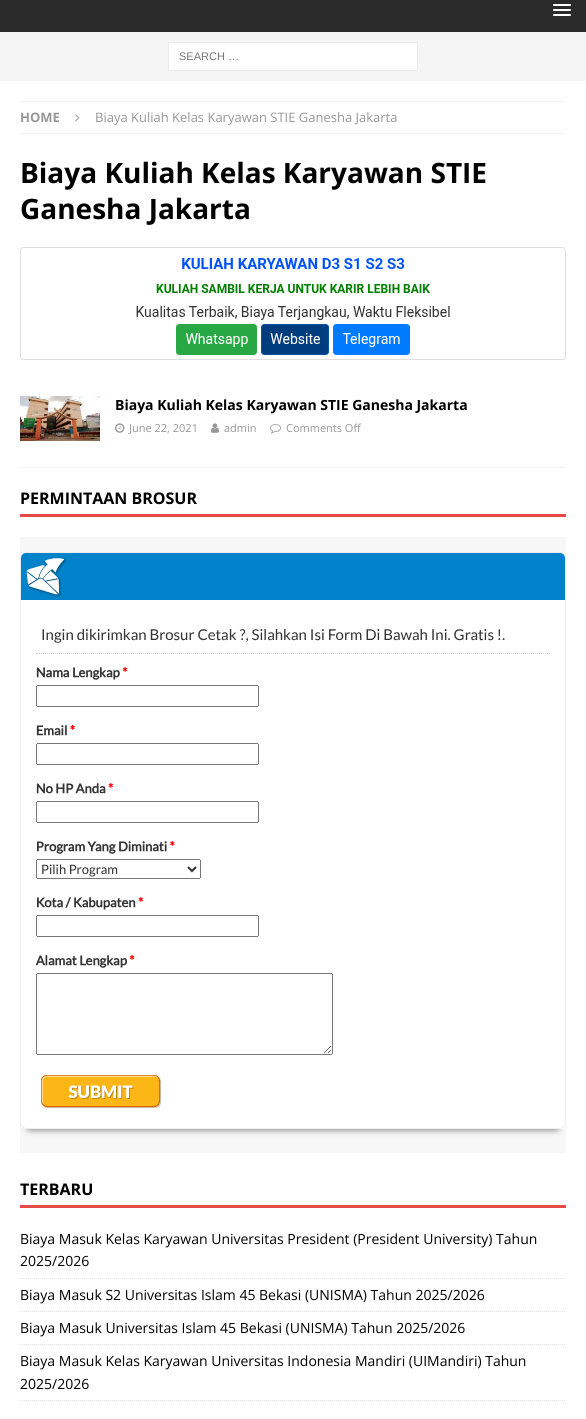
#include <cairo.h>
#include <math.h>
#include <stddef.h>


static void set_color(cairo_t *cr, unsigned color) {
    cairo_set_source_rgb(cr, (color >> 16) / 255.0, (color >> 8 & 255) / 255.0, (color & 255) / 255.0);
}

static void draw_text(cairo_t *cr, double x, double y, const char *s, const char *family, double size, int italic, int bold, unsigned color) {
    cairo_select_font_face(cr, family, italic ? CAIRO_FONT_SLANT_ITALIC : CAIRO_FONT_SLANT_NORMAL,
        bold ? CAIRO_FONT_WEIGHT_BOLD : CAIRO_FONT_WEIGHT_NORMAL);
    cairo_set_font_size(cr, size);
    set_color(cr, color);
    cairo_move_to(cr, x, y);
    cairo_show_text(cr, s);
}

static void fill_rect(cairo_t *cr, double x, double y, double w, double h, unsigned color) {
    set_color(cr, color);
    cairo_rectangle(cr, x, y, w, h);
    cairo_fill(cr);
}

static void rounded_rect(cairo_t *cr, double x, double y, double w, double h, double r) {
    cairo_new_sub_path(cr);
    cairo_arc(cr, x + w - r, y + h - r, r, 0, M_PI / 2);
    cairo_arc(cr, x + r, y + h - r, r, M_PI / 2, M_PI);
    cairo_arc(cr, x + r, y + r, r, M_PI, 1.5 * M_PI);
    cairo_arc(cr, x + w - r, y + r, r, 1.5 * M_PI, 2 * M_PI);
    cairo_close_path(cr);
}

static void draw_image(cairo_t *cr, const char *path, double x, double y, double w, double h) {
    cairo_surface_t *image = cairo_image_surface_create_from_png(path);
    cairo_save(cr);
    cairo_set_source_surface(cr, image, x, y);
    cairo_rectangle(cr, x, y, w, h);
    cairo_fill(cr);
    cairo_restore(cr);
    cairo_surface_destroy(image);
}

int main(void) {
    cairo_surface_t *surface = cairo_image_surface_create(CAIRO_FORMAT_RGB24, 586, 1419);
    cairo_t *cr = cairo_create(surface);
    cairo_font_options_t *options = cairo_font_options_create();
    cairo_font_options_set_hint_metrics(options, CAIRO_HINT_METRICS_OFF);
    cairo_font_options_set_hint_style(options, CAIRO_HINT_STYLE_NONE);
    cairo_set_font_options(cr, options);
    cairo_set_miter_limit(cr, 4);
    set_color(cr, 0x2A2A2A);
    cairo_paint(cr);
    set_color(cr, 0xFFFFFF);
    rounded_rect(cr, 553, 4, 18, 2, 1);
    cairo_fill(cr);
    rounded_rect(cr, 553, 9, 18, 2, 1);
    cairo_fill(cr);
    rounded_rect(cr, 553, 14, 18, 2, 1);
    cairo_fill(cr);
    fill_rect(cr, 0, 32, 586, 49, 0xF5F5F5);
    set_color(cr, 0xFFFFFF);
    cairo_rectangle(cr, 168.5, 42.5, 249, 28);
    cairo_fill_preserve(cr);
    set_color(cr, 0xEBEBEB);
    cairo_set_line_width(cr, 1);
    cairo_stroke(cr);
    draw_text(cr, 179, 60, "SEARCH …", "Liberation Sans", 11, 0, 0, 0x757575);
    fill_rect(cr, 0, 81, 586, 1338, 0xFFFFFF);
    cairo_new_path(cr);
    cairo_move_to(cr, 20, 101.5);
    cairo_line_to(cr, 566, 101.5);
    set_color(cr, 0xEBEBEB);
    cairo_set_dash(cr, (double[]){1, 1}, 2, 0);
    cairo_stroke(cr);
    cairo_new_path(cr);
    cairo_move_to(cr, 20, 133.5);
    cairo_line_to(cr, 566, 133.5);
    cairo_stroke(cr);
    draw_text(cr, 20, 122, "HOME", "Open Sans", 13, 0, 1, 0x979797);
    draw_image(cr, "assets/img1.png", 75, 114, 5, 8);
    draw_text(cr, 95, 122, "Biaya Kuliah Kelas Karyawan STIE Ganesha Jakarta", "Open Sans", 13, 0, 0, 0x979797);
    draw_text(cr, 20, 183, "Biaya Kuliah Kelas Karyawan STIE", "Open Sans", 28, 0, 1, 0x000000);
    draw_text(cr, 20, 219, "Ganesha Jakarta", "Open Sans", 28, 0, 1, 0x000000);
    draw_image(cr, "assets/img2.png", 20, 247, 546, 113);
    cairo_new_path(cr);
    cairo_move_to(cr, 20, 467.5);
    cairo_line_to(cr, 566, 467.5);
    set_color(cr, 0xEBEBEB);
    cairo_stroke(cr);
    draw_image(cr, "assets/img3.png", 20, 396, 80, 45);
    draw_text(cr, 115, 410, "Biaya Kuliah Kelas Karyawan STIE Ganesha Jakarta", "Open Sans", 14, 0, 1, 0x000000);
    draw_image(cr, "assets/img4.png", 115, 423, 10, 10);
    draw_text(cr, 129, 432, "June 22, 2021", "Open Sans", 11, 0, 0, 0x979797);
    draw_image(cr, "assets/img5.png", 211, 423, 8, 10);
    draw_text(cr, 224, 432, "admin", "Open Sans", 11, 0, 0, 0x979797);
    draw_image(cr, "assets/img6.png", 270, 424, 11, 10);
    draw_text(cr, 286, 432, "Comments Off", "Open Sans", 11, 0, 0, 0x979797);
    fill_rect(cr, 20, 514, 546, 3, 0xE64946);
    draw_text(cr, 20, 504, "PERMINTAAN BROSUR", "Open Sans", 16, 0, 1, 0x000000);
    draw_image(cr, "assets/img7.png", 20, 537, 546, 616);
    fill_rect(cr, 20, 1205, 546, 3, 0xE64946);
    draw_text(cr, 20, 1195, "TERBARU", "Open Sans", 16, 0, 1, 0x000000);
    cairo_new_path(cr);
    cairo_move_to(cr, 20, 1278.5);
    cairo_line_to(cr, 566, 1278.5);
    set_color(cr, 0xE5E5E5);
    cairo_stroke(cr);
    draw_text(cr, 20, 1244, "Biaya Masuk Kelas Karyawan Universitas President (President University) Tahun", "Open Sans", 14, 0, 0, 0x000000);
    draw_text(cr, 20, 1266, "2025/2026", "Open Sans", 14, 0, 0, 0x000000);
    cairo_new_path(cr);
    cairo_move_to(cr, 20, 1311.5);
    cairo_line_to(cr, 566, 1311.5);
    set_color(cr, 0xE5E5E5);
    cairo_stroke(cr);
    draw_text(cr, 20, 1300, "Biaya Masuk S2 Universitas Islam 45 Bekasi (UNISMA) Tahun 2025/2026", "Open Sans", 14, 0, 0, 0x000000);
    cairo_new_path(cr);
    cairo_move_to(cr, 20, 1344.5);
    cairo_line_to(cr, 566, 1344.5);
    set_color(cr, 0xE5E5E5);
    cairo_stroke(cr);
    draw_text(cr, 20, 1333, "Biaya Masuk Universitas Islam 45 Bekasi (UNISMA) Tahun 2025/2026", "Open Sans", 14, 0, 0, 0x000000);
    cairo_new_path(cr);
    cairo_move_to(cr, 20, 1400.5);
    cairo_line_to(cr, 566, 1400.5);
    set_color(cr, 0xE5E5E5);
    cairo_stroke(cr);
    draw_text(cr, 20, 1366, "Biaya Masuk Kelas Karyawan Universitas Indonesia Mandiri (UIMandiri) Tahun", "Open Sans", 14, 0, 0, 0x000000);
    draw_text(cr, 20, 1389, "2025/2026", "Open Sans", 14, 0, 0, 0x000000);
    cairo_surface_write_to_png(surface, "output.png");
    cairo_font_options_destroy(options);
    cairo_destroy(cr);
    cairo_surface_destroy(surface);
    return 0;
}
